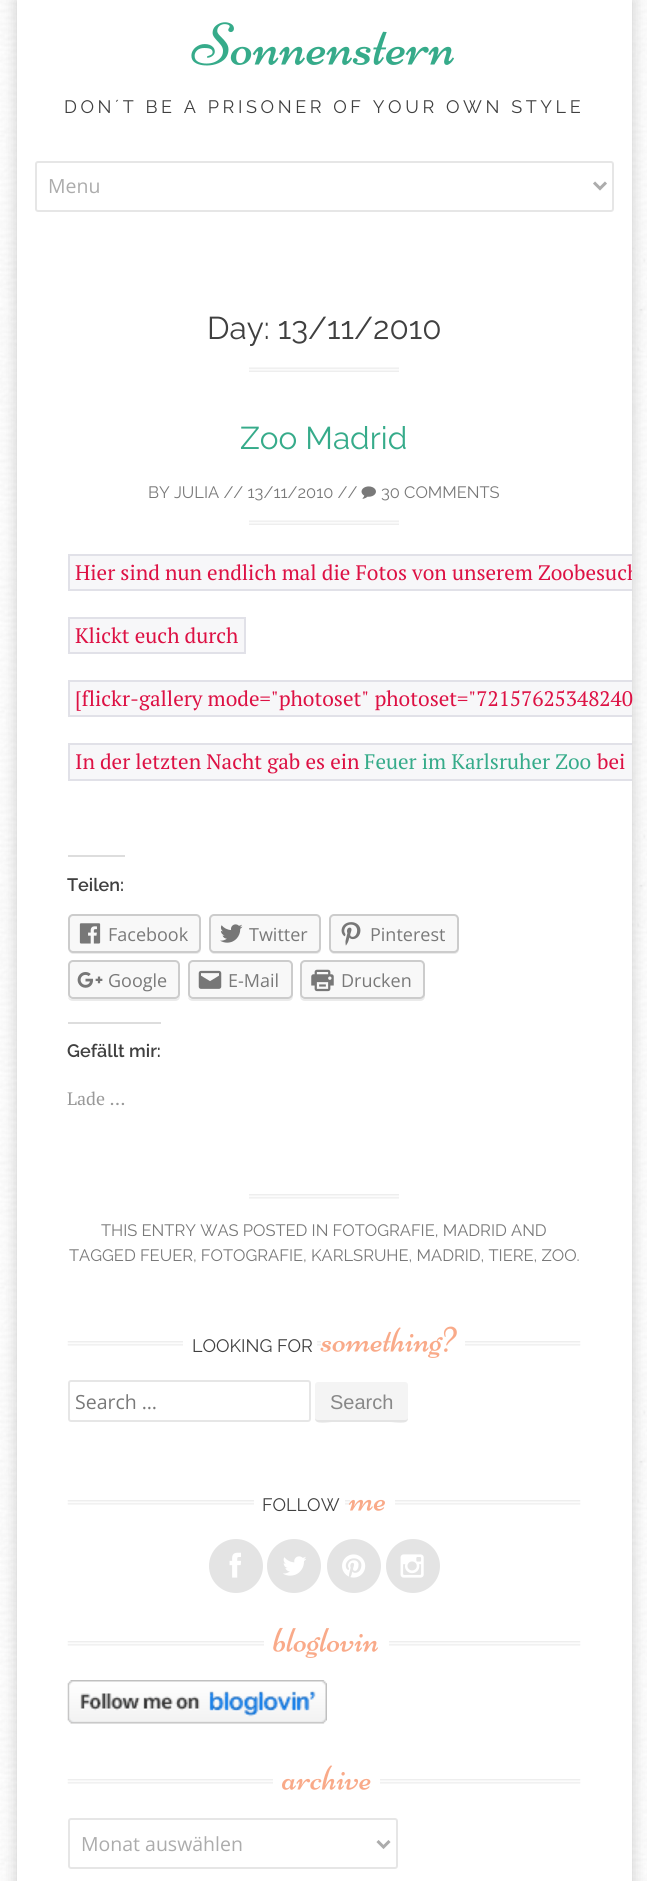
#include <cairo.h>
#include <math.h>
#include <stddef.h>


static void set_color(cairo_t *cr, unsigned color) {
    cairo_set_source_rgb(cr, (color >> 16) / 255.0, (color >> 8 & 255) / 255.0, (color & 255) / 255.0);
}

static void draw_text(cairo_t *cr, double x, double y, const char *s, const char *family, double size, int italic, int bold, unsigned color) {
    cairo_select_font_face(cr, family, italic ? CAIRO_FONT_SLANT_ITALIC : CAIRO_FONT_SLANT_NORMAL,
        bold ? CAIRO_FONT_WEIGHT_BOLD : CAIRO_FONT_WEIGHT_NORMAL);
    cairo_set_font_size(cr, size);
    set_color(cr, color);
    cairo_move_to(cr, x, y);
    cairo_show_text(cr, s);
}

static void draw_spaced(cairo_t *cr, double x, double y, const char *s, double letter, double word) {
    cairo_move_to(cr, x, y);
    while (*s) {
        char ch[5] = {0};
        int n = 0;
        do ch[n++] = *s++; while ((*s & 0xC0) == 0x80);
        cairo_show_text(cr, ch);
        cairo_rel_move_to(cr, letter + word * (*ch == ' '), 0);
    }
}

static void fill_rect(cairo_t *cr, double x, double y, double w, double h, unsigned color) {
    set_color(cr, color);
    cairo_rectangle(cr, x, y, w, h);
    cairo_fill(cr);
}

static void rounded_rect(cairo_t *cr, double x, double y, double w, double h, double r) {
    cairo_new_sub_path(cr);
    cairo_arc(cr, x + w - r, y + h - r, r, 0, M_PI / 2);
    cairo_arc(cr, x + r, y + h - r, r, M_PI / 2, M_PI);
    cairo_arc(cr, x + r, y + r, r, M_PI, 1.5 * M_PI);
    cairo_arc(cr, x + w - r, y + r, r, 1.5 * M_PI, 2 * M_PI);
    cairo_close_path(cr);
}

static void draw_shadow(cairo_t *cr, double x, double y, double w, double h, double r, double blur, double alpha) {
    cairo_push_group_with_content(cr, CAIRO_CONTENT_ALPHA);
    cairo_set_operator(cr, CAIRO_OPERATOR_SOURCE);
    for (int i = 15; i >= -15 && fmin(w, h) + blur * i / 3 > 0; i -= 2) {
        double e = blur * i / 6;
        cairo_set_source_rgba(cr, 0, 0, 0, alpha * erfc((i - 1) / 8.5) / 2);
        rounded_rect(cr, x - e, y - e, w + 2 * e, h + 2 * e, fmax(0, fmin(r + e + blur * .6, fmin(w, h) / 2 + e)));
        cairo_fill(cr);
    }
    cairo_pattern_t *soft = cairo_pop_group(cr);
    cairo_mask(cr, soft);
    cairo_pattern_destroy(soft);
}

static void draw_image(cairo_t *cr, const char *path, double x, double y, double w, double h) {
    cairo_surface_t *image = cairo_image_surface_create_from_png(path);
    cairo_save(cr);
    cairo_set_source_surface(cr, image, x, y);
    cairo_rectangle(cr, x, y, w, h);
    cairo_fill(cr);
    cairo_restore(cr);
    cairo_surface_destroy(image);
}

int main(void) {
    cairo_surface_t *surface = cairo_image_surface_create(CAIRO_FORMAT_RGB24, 647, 1881);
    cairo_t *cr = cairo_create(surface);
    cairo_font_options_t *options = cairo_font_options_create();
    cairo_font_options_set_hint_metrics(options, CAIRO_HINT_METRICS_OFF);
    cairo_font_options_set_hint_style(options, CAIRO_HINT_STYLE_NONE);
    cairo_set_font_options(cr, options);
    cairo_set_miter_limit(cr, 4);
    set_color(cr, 0xFFFFFF);
    cairo_paint(cr);
    draw_image(cr, "assets/img1.png", 0, 0, 647, 1881);
    set_color(cr, 0x000000);
    draw_shadow(cr, 17, 0, 615, 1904, 0, 7.5, 0.2);
    fill_rect(cr, 17, 0, 615, 1881, 0xFFFFFF);
    draw_image(cr, "assets/img2.png", 191, 22, 263, 44);
    cairo_select_font_face(cr, "Raleway", CAIRO_FONT_SLANT_NORMAL, CAIRO_FONT_WEIGHT_NORMAL);
    cairo_set_font_size(cr, 18);
    set_color(cr, 0x404040);
    draw_spaced(cr, 64, 113, "DON´T BE A PRISONER OF YOUR OWN STYLE", 3.6, 0);
    rounded_rect(cr, 36, 162, 577, 49, 2);
    set_color(cr, 0xE6E6E6);
    cairo_stroke(cr);
    cairo_new_path(cr);
    cairo_move_to(cr, 594, 182.5);
    cairo_line_to(cr, 600, 188.5);
    cairo_line_to(cr, 606, 182.5);
    set_color(cr, 0xACACAC);
    cairo_set_line_width(cr, 3);
    cairo_stroke(cr);
    draw_text(cr, 48, 193, "Menu", "Open Sans", 19.5, 0, 0, 0xACACAC);
    draw_image(cr, "assets/img3.png", 249, 367, 150, 5);
    draw_text(cr, 207, 339, "Day: 13/11/2010", "Raleway", 31.5, 0, 0, 0x404040);
    draw_text(cr, 240, 449, "Zoo Madrid", "Raleway", 31.5, 0, 0, 0x36AB8A);
    draw_image(cr, "assets/img3.png", 249, 520, 150, 5);
    draw_text(cr, 148, 498, "BY JULIA // 13/11/2010 //", "Raleway", 16.5, 0, 0, 0x797979);
    draw_image(cr, "assets/img4.png", 361, 486, 15, 13);
    draw_text(cr, 381, 498, "30 COMMENTS", "Raleway", 16.5, 0, 0, 0x797979);
    fill_rect(cr, 70, 556, 562, 33, 0xF7F7F9);
    cairo_save(cr);
    cairo_rectangle(cr, 17, 242, 615, 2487);
    cairo_clip(cr);
    cairo_rectangle(cr, 69, 555, 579, 35);
    set_color(cr, 0xE1E1E8);
    cairo_set_line_width(cr, 2);
    cairo_stroke(cr);
    draw_text(cr, 75, 580, "Hier sind nun endlich mal die Fotos von unserem Zoobesuch", "PT Serif", 21, 0, 0, 0xDD1144);
    cairo_restore(cr);
    cairo_rectangle(cr, 69, 618, 176, 35);
    cairo_fill_preserve(cr);
    set_color(cr, 0xE1E1E8);
    cairo_set_line_width(cr, 2);
    cairo_stroke(cr);
    draw_text(cr, 75, 643, "Klickt euch durch", "PT Serif", 21, 0, 0, 0xDD1144);
    fill_rect(cr, 70, 682, 562, 33, 0xF7F7F9);
    cairo_save(cr);
    cairo_rectangle(cr, 17, 242, 615, 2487);
    cairo_clip(cr);
    cairo_rectangle(cr, 69, 681, 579, 35);
    set_color(cr, 0xE1E1E8);
    cairo_stroke(cr);
    cairo_restore(cr);
    draw_text(cr, 75, 706, "[flickr-gallery mode=\"photoset\" photoset=\"72157625348240", "PT Serif", 21, 0, 0, 0xDD1144);
    fill_rect(cr, 70, 745, 562, 34, 0xF7F7F9);
    draw_text(cr, 75, 769, "In der letzten Nacht gab es ein", "PT Serif", 21, 0, 0, 0xDD1144);
    fill_rect(cr, 68, 779, 564, 2, 0xE1E1E8);
    fill_rect(cr, 68, 743, 564, 2, 0xE1E1E8);
    fill_rect(cr, 68, 743, 2, 37, 0xE1E1E8);
    draw_text(cr, 364, 769, "Feuer im Karlsruher Zoo", "PT Serif", 21, 0, 0, 0x36AB8A);
    draw_text(cr, 597, 769, "bei", "PT Serif", 21, 0, 0, 0xDD1144);
    fill_rect(cr, 68, 855, 57, 2, 0xDDDDDD);
    draw_text(cr, 67, 891, "Teilen:", "Raleway SemiBold", 18, 0, 0, 0x404040);
    set_color(cr, 0xEBEBEB);
    cairo_new_path(cr);
    cairo_move_to(cr, 68, 950);
    cairo_curve_to(cr, 69, 952, 71, 954, 73, 954);
    cairo_line_to(cr, 196, 954);
    cairo_curve_to(cr, 199, 954, 201, 952, 201, 949);
    cairo_line_to(cr, 201, 948);
    cairo_curve_to(cr, 201, 950, 199, 952, 196, 952);
    cairo_line_to(cr, 72, 952);
    cairo_curve_to(cr, 70, 952, 69, 952, 68, 950);
    cairo_close_path(cr);
    cairo_fill(cr);
    set_color(cr, 0xF8F8F8);
    rounded_rect(cr, 69, 915, 131, 37, 4);
    cairo_fill_preserve(cr);
    set_color(cr, 0xCCCCCC);
    cairo_stroke(cr);
    draw_image(cr, "assets/img5.png", 79, 923, 22, 21);
    draw_text(cr, 108, 941, "Facebook", "Open Sans", 18, 0, 0, 0x797979);
    set_color(cr, 0xEBEBEB);
    cairo_new_path(cr);
    cairo_move_to(cr, 209, 950);
    cairo_curve_to(cr, 210, 952, 212, 954, 214, 954);
    cairo_line_to(cr, 316, 954);
    cairo_curve_to(cr, 319, 954, 321, 952, 321, 949);
    cairo_line_to(cr, 321, 948);
    cairo_curve_to(cr, 321, 950, 319, 952, 316, 952);
    cairo_line_to(cr, 213, 952);
    cairo_curve_to(cr, 211, 952, 210, 952, 209, 950);
    cairo_close_path(cr);
    cairo_fill(cr);
    set_color(cr, 0xF8F8F8);
    rounded_rect(cr, 210, 915, 110, 37, 4);
    cairo_fill_preserve(cr);
    set_color(cr, 0xCCCCCC);
    cairo_stroke(cr);
    draw_image(cr, "assets/img6.png", 220, 924, 23, 19);
    draw_text(cr, 249, 941, "Twitter", "Open Sans", 18, 0, 0, 0x797979);
    set_color(cr, 0xEBEBEB);
    cairo_new_path(cr);
    cairo_move_to(cr, 329, 950);
    cairo_curve_to(cr, 330, 952, 332, 954, 334, 954);
    cairo_line_to(cr, 454, 954);
    cairo_curve_to(cr, 457, 954, 459, 952, 459, 949);
    cairo_line_to(cr, 459, 948);
    cairo_curve_to(cr, 459, 950, 457, 952, 454, 952);
    cairo_line_to(cr, 333, 952);
    cairo_curve_to(cr, 331, 952, 330, 952, 329, 950);
    cairo_close_path(cr);
    cairo_fill(cr);
    set_color(cr, 0xF8F8F8);
    rounded_rect(cr, 330, 915, 128, 37, 4);
    cairo_fill_preserve(cr);
    set_color(cr, 0xCCCCCC);
    cairo_stroke(cr);
    draw_image(cr, "assets/img7.png", 341, 922, 20, 24);
    draw_text(cr, 370, 941, "Pinterest", "Open Sans", 18, 0, 0, 0x797979);
    set_color(cr, 0xEBEBEB);
    cairo_new_path(cr);
    cairo_move_to(cr, 68, 997);
    cairo_curve_to(cr, 68, 999, 70, 1001, 73, 1001);
    cairo_line_to(cr, 175, 1001);
    cairo_curve_to(cr, 178, 1001, 180, 999, 180, 996);
    cairo_line_to(cr, 180, 994);
    cairo_curve_to(cr, 180, 997, 178, 999, 176, 999);
    cairo_line_to(cr, 72, 999);
    cairo_curve_to(cr, 70, 999, 69, 998, 68, 997);
    cairo_close_path(cr);
    cairo_fill(cr);
    set_color(cr, 0xF8F8F8);
    rounded_rect(cr, 69, 961, 110, 37, 4);
    cairo_fill_preserve(cr);
    set_color(cr, 0xCCCCCC);
    cairo_stroke(cr);
    draw_image(cr, "assets/img8.png", 77, 972, 26, 16);
    draw_text(cr, 108, 987, "Google", "Open Sans", 18, 0, 0, 0x797979);
    set_color(cr, 0xEBEBEB);
    cairo_new_path(cr);
    cairo_move_to(cr, 188, 997);
    cairo_curve_to(cr, 188, 999, 190, 1001, 193, 1001);
    cairo_line_to(cr, 288, 1001);
    cairo_curve_to(cr, 291, 1001, 293, 999, 293, 996);
    cairo_line_to(cr, 293, 967);
    cairo_line_to(cr, 292, 965);
    cairo_line_to(cr, 292, 994);
    cairo_curve_to(cr, 292, 997, 290, 999, 288, 999);
    cairo_line_to(cr, 192, 999);
    cairo_curve_to(cr, 190, 999, 189, 998, 188, 997);
    cairo_close_path(cr);
    cairo_fill(cr);
    set_color(cr, 0xF8F8F8);
    rounded_rect(cr, 189, 961, 103, 37, 4);
    cairo_fill_preserve(cr);
    set_color(cr, 0xCCCCCC);
    cairo_stroke(cr);
    draw_image(cr, "assets/img9.png", 198, 970, 24, 19);
    draw_text(cr, 228, 987, "E-Mail", "Open Sans", 18, 0, 0, 0x797979);
    set_color(cr, 0xEBEBEB);
    cairo_new_path(cr);
    cairo_move_to(cr, 300, 994);
    cairo_line_to(cr, 300, 996);
    cairo_curve_to(cr, 300, 999, 302, 1001, 305, 1001);
    cairo_line_to(cr, 420, 1001);
    cairo_curve_to(cr, 423, 1001, 425, 999, 425, 996);
    cairo_line_to(cr, 425, 967);
    cairo_line_to(cr, 424, 965);
    cairo_line_to(cr, 424, 994);
    cairo_curve_to(cr, 424, 997, 422, 999, 420, 999);
    cairo_line_to(cr, 304, 999);
    cairo_curve_to(cr, 302, 999, 300, 997, 300, 994);
    cairo_close_path(cr);
    cairo_fill(cr);
    set_color(cr, 0xF8F8F8);
    rounded_rect(cr, 301, 961, 123, 37, 4);
    cairo_fill_preserve(cr);
    set_color(cr, 0xCCCCCC);
    cairo_stroke(cr);
    draw_image(cr, "assets/img10.png", 311, 969, 23, 23);
    draw_text(cr, 341, 987, "Drucken", "Open Sans", 18, 0, 0, 0x797979);
    fill_rect(cr, 68, 1022, 93, 2, 0xDDDDDD);
    draw_text(cr, 67, 1057, "Gefällt mir:", "Raleway SemiBold", 18, 0, 0, 0x404040);
    draw_text(cr, 67, 1105, "Lade …", "PT Serif", 18, 0, 0, 0x999999);
    draw_image(cr, "assets/img11.png", 249, 1194, 150, 5);
    draw_text(cr, 101, 1236, "THIS ENTRY WAS POSTED IN FOTOGRAFIE, MADRID AND", "Raleway", 16.5, 0, 0, 0x797979);
    draw_text(cr, 69, 1261, "TAGGED FEUER, FOTOGRAFIE, KARLSRUHE, MADRID, TIERE, ZOO.", "Raleway", 16.5, 0, 0, 0x797979);
    draw_image(cr, "assets/img12.png", 67, 1341, 514, 5);
    fill_rect(cr, 183, 1341, 134, 5, 0xFFFFFF);
    draw_text(cr, 192, 1352, "LOOKING FOR", "Raleway", 18, 0, 0, 0x404040);
    fill_rect(cr, 321, 1341, 144, 5, 0xFFFFFF);
    draw_image(cr, "assets/img13.png", 320, 1326, 137, 32);
    rounded_rect(cr, 69, 1381, 241, 40, 2);
    set_color(cr, 0xE6E6E6);
    cairo_stroke(cr);
    draw_text(cr, 75, 1409, "Search …", "Open Sans", 19.5, 0, 0, 0x797979);
    set_color(cr, 0xF4F4F4);
    rounded_rect(cr, 315, 1382, 93, 40, 3);
    cairo_fill(cr);
    cairo_set_source_rgba(cr, 0, 0, 0, 0.07);
    cairo_new_path(cr);
    cairo_move_to(cr, 315, 1418);
    cairo_curve_to(cr, 315, 1426, 329, 1422, 332, 1422);
    cairo_line_to(cr, 390, 1422);
    cairo_curve_to(cr, 394, 1422, 408, 1426, 408, 1418);
    cairo_curve_to(cr, 408, 1419, 407, 1420, 405, 1420);
    cairo_line_to(cr, 318, 1420);
    cairo_curve_to(cr, 316, 1420, 315, 1419, 315, 1418);
    cairo_close_path(cr);
    cairo_fill(cr);
    draw_text(cr, 330, 1409, "Search", "Liberation Sans", 20, 0, 0, 0x888888);
    draw_image(cr, "assets/img12.png", 67, 1500, 514, 5);
    fill_rect(cr, 254, 1500, 91, 5, 0xFFFFFF);
    draw_text(cr, 262, 1511, "FOLLOW", "Raleway", 18, 0, 0, 0x404040);
    fill_rect(cr, 350, 1500, 45, 5, 0xFFFFFF);
    draw_image(cr, "assets/img14.png", 348, 1499, 37, 12);
    set_color(cr, 0xE4E4E4);
    cairo_arc(cr, 236, 1566, 27, 0, 2 * M_PI);
    cairo_fill(cr);
    draw_image(cr, "assets/img15.png", 229, 1552, 12, 26);
    cairo_arc(cr, 294, 1566, 27, 0, 2 * M_PI);
    cairo_fill(cr);
    draw_image(cr, "assets/img16.png", 283, 1556, 23, 20);
    cairo_arc(cr, 354, 1566, 27, 0, 2 * M_PI);
    cairo_fill(cr);
    draw_image(cr, "assets/img17.png", 342, 1554, 24, 24);
    cairo_arc(cr, 413, 1566, 27, 0, 2 * M_PI);
    cairo_fill(cr);
    draw_image(cr, "assets/img18.png", 400, 1554, 24, 24);
    draw_image(cr, "assets/img19.png", 67, 1641, 514, 5);
    fill_rect(cr, 264, 1641, 125, 5, 0xFFFFFF);
    draw_image(cr, "assets/img20.png", 273, 1627, 105, 31);
    draw_image(cr, "assets/img21.png", 67, 1680, 260, 44);
    draw_image(cr, "assets/img19.png", 67, 1779, 514, 5);
    fill_rect(cr, 273, 1779, 107, 5, 0xFFFFFF);
    draw_image(cr, "assets/img22.png", 282, 1765, 89, 25);
    rounded_rect(cr, 69, 1819, 328, 49, 2);
    set_color(cr, 0xE6E6E6);
    cairo_stroke(cr);
    cairo_new_path(cr);
    cairo_move_to(cr, 377.5, 1841);
    cairo_line_to(cr, 383.5, 1847);
    cairo_line_to(cr, 389.5, 1841);
    set_color(cr, 0xACACAC);
    cairo_set_line_width(cr, 3);
    cairo_stroke(cr);
    draw_text(cr, 81, 1851, "Monat auswählen", "Open Sans", 19.5, 0, 0, 0xACACAC);
    cairo_surface_write_to_png(surface, "output.png");
    cairo_font_options_destroy(options);
    cairo_destroy(cr);
    cairo_surface_destroy(surface);
    return 0;
}
